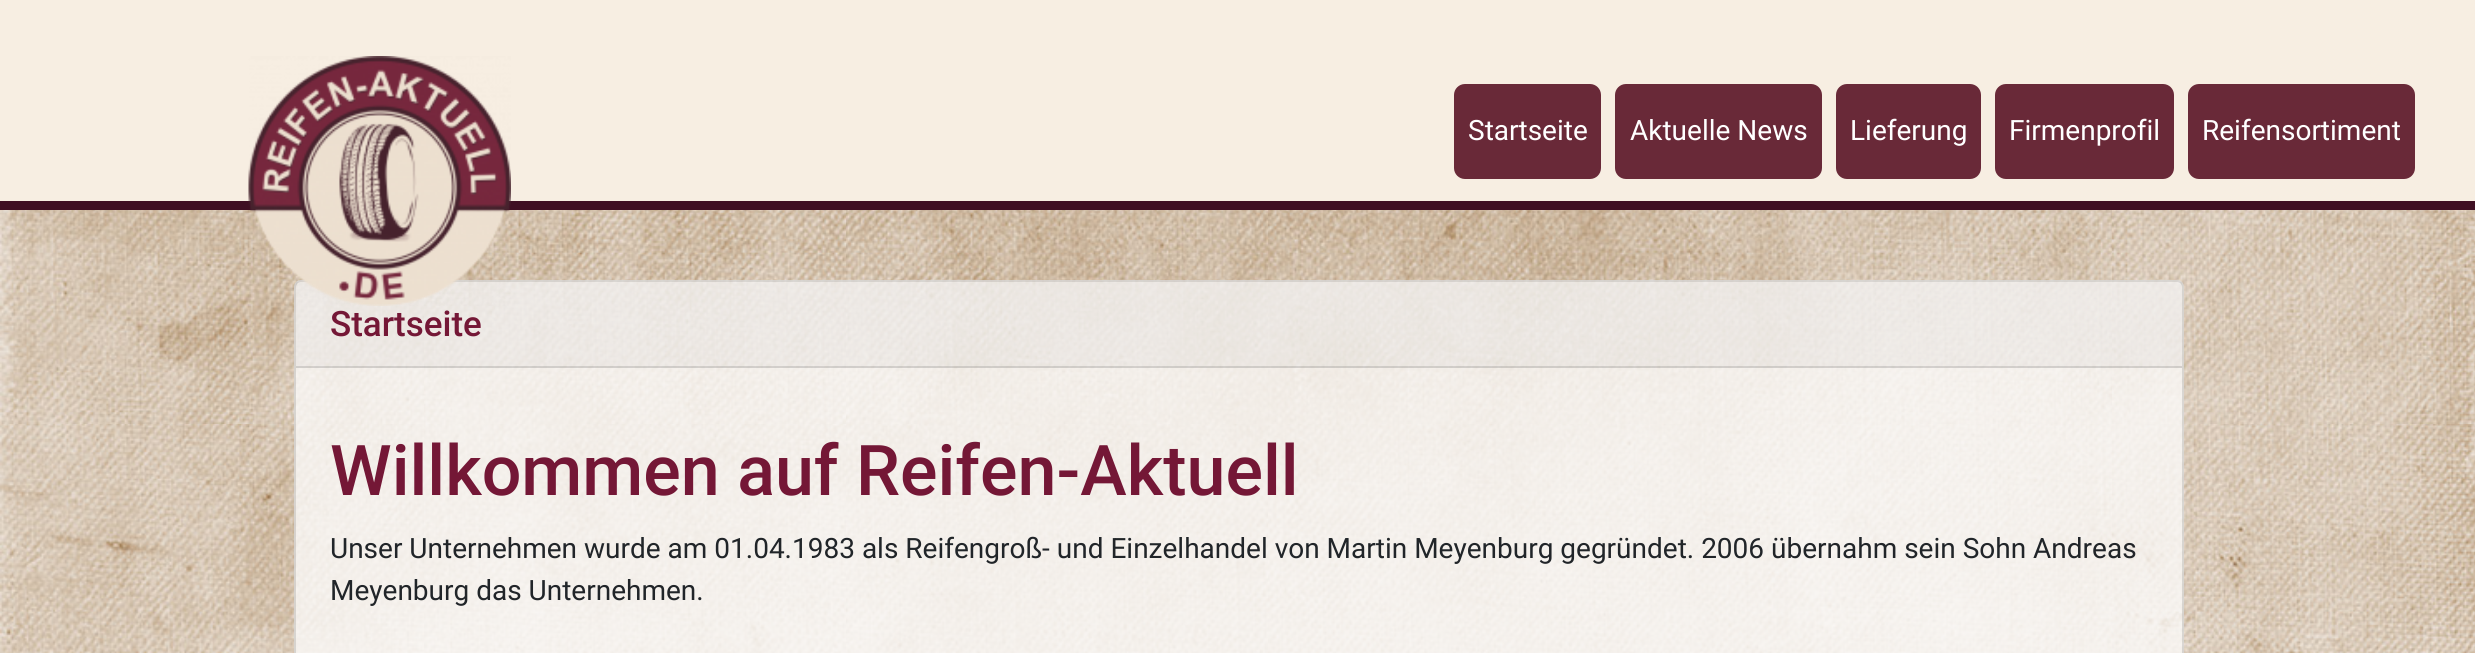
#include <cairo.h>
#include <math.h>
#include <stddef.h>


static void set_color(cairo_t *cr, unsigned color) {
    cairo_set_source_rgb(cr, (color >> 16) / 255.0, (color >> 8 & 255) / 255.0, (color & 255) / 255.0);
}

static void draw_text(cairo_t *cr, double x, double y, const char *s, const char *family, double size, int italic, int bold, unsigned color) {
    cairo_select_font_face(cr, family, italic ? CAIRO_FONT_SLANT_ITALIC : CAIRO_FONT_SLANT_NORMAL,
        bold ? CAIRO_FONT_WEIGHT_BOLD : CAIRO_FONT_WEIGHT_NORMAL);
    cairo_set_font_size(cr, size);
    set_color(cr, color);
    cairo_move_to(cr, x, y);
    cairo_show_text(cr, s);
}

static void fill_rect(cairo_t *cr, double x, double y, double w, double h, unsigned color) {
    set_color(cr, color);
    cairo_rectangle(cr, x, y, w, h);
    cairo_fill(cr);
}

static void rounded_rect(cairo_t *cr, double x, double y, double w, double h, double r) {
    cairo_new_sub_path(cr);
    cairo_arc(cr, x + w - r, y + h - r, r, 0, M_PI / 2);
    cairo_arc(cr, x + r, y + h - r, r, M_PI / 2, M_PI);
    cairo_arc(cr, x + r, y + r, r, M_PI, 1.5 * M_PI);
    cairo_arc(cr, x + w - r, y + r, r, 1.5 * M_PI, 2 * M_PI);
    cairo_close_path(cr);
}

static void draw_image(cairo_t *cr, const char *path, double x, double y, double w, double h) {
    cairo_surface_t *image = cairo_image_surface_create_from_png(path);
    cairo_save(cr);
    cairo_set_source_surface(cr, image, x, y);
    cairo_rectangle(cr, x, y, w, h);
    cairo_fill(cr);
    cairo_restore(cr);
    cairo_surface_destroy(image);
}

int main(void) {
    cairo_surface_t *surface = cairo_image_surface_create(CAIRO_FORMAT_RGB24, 2475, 653);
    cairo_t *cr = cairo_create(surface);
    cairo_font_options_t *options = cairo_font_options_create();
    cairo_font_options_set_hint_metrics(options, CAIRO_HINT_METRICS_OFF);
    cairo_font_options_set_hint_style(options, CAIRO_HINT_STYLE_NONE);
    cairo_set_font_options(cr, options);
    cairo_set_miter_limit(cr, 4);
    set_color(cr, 0xFFFFFF);
    cairo_paint(cr);
    draw_image(cr, "assets/img1.png", 0, 210, 2475, 443);
    fill_rect(cr, 0, 0, 2475, 201, 0xF7EEE2);
    fill_rect(cr, 0, 201, 2475, 9, 0x3F0F23);
    cairo_set_source_rgba(cr, 0.984, 0.98, 0.973, 0.8);
    rounded_rect(cr, 294, 280, 1890, 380, 7);
    cairo_fill(cr);
    rounded_rect(cr, 295, 281, 1888, 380, 6);
    cairo_set_source_rgba(cr, 0, 0, 0, 0.12);
    cairo_stroke(cr);
    cairo_set_source_rgba(cr, 0, 0, 0, 0.03);
    cairo_rectangle(cr, 296, 282, 1886, 86);
    cairo_fill(cr);
    draw_image(cr, "assets/img2.png", 248, 56, 263, 250);
    set_color(cr, 0x692938);
    rounded_rect(cr, 1454, 84, 147, 95, 11);
    cairo_fill(cr);
    draw_text(cr, 1468, 140, "Startseite", "Roboto", 28, 0, 0, 0xFFFFFF);
    set_color(cr, 0x692938);
    rounded_rect(cr, 1615, 84, 207, 95, 11);
    cairo_fill(cr);
    draw_text(cr, 1630, 140, "Aktuelle News", "Roboto", 28, 0, 0, 0xFFFFFF);
    set_color(cr, 0x692938);
    rounded_rect(cr, 1836, 84, 145, 95, 11);
    cairo_fill(cr);
    draw_text(cr, 1850, 140, "Lieferung", "Roboto", 28, 0, 0, 0xFFFFFF);
    set_color(cr, 0x692938);
    rounded_rect(cr, 1995, 84, 179, 95, 11);
    cairo_fill(cr);
    draw_text(cr, 2009, 140, "Firmenprofil", "Roboto", 28, 0, 0, 0xFFFFFF);
    set_color(cr, 0x692938);
    rounded_rect(cr, 2188, 84, 227, 95, 11);
    cairo_fill(cr);
    draw_text(cr, 2202, 140, "Reifensortiment", "Roboto", 28, 0, 0, 0xFFFFFF);
    cairo_set_source_rgba(cr, 0, 0, 0, 0.12);
    cairo_rectangle(cr, 296, 366, 1886, 2);
    cairo_fill(cr);
    draw_text(cr, 330, 336, "Startseite", "Roboto Medium", 35, 0, 0, 0x741736);
    draw_text(cr, 330, 495, "Willkommen auf Reifen-Aktuell", "Roboto Medium", 70, 0, 0, 0x741736);
    draw_text(cr, 330, 558, "Unser Unternehmen wurde am 01.04.1983 als Reifengroß- und Einzelhandel von Martin Meyenburg gegründet. 2006 übernahm sein Sohn Andreas", "Roboto", 28, 0, 0, 0x212529);
    draw_text(cr, 330, 600, "Meyenburg das Unternehmen.", "Roboto", 28, 0, 0, 0x212529);
    cairo_surface_write_to_png(surface, "output.png");
    cairo_font_options_destroy(options);
    cairo_destroy(cr);
    cairo_surface_destroy(surface);
    return 0;
}
